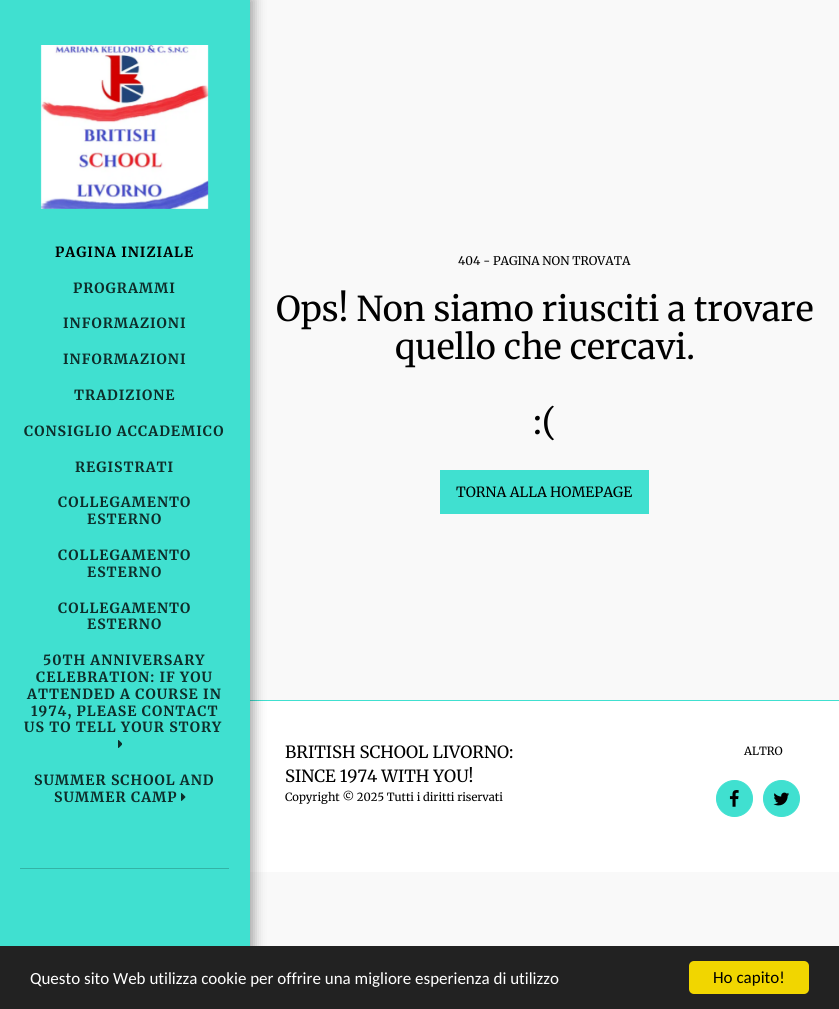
#include <cairo.h>
#include <math.h>
#include <stddef.h>


static void set_color(cairo_t *cr, unsigned color) {
    cairo_set_source_rgb(cr, (color >> 16) / 255.0, (color >> 8 & 255) / 255.0, (color & 255) / 255.0);
}

static void draw_text(cairo_t *cr, double x, double y, const char *s, const char *family, double size, int italic, int bold, unsigned color) {
    cairo_select_font_face(cr, family, italic ? CAIRO_FONT_SLANT_ITALIC : CAIRO_FONT_SLANT_NORMAL,
        bold ? CAIRO_FONT_WEIGHT_BOLD : CAIRO_FONT_WEIGHT_NORMAL);
    cairo_set_font_size(cr, size);
    set_color(cr, color);
    cairo_move_to(cr, x, y);
    cairo_show_text(cr, s);
}

static void draw_spaced(cairo_t *cr, double x, double y, const char *s, double letter, double word) {
    cairo_move_to(cr, x, y);
    while (*s) {
        char ch[5] = {0};
        int n = 0;
        do ch[n++] = *s++; while ((*s & 0xC0) == 0x80);
        cairo_show_text(cr, ch);
        cairo_rel_move_to(cr, letter + word * (*ch == ' '), 0);
    }
}

static void fill_rect(cairo_t *cr, double x, double y, double w, double h, unsigned color) {
    set_color(cr, color);
    cairo_rectangle(cr, x, y, w, h);
    cairo_fill(cr);
}

static void rounded_rect(cairo_t *cr, double x, double y, double w, double h, double r) {
    cairo_new_sub_path(cr);
    cairo_arc(cr, x + w - r, y + h - r, r, 0, M_PI / 2);
    cairo_arc(cr, x + r, y + h - r, r, M_PI / 2, M_PI);
    cairo_arc(cr, x + r, y + r, r, M_PI, 1.5 * M_PI);
    cairo_arc(cr, x + w - r, y + r, r, 1.5 * M_PI, 2 * M_PI);
    cairo_close_path(cr);
}

static void draw_shadow(cairo_t *cr, double x, double y, double w, double h, double r, double blur, double alpha) {
    cairo_push_group_with_content(cr, CAIRO_CONTENT_ALPHA);
    cairo_set_operator(cr, CAIRO_OPERATOR_SOURCE);
    for (int i = 15; i >= -15 && fmin(w, h) + blur * i / 3 > 0; i -= 2) {
        double e = blur * i / 6;
        cairo_set_source_rgba(cr, 0, 0, 0, alpha * erfc((i - 1) / 8.5) / 2);
        rounded_rect(cr, x - e, y - e, w + 2 * e, h + 2 * e, fmax(0, fmin(r + e + blur * .6, fmin(w, h) / 2 + e)));
        cairo_fill(cr);
    }
    cairo_pattern_t *soft = cairo_pop_group(cr);
    cairo_mask(cr, soft);
    cairo_pattern_destroy(soft);
}

static void draw_image(cairo_t *cr, const char *path, double x, double y, double w, double h) {
    cairo_surface_t *image = cairo_image_surface_create_from_png(path);
    cairo_save(cr);
    cairo_set_source_surface(cr, image, x, y);
    cairo_rectangle(cr, x, y, w, h);
    cairo_fill(cr);
    cairo_restore(cr);
    cairo_surface_destroy(image);
}

int main(void) {
    cairo_surface_t *surface = cairo_image_surface_create(CAIRO_FORMAT_RGB24, 839, 1009);
    cairo_t *cr = cairo_create(surface);
    cairo_font_options_t *options = cairo_font_options_create();
    cairo_font_options_set_hint_metrics(options, CAIRO_HINT_METRICS_OFF);
    cairo_font_options_set_hint_style(options, CAIRO_HINT_STYLE_NONE);
    cairo_set_font_options(cr, options);
    cairo_set_miter_limit(cr, 4);
    set_color(cr, 0xF9F9F9);
    cairo_paint(cr);
    fill_rect(cr, 250, 701, 589, 171, 0xFFFFFF);
    fill_rect(cr, 250, 700, 589, 1, 0x40E0D0);
    set_color(cr, 0x000000);
    draw_shadow(cr, 0, -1, 254, 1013, 0, 6, 0.35);
    fill_rect(cr, 0, 0, 250, 946, 0x40E0D0);
    draw_image(cr, "assets/img1.png", 40, 45, 169, 164);
    cairo_select_font_face(cr, "Merriweather", CAIRO_FONT_SLANT_NORMAL, CAIRO_FONT_WEIGHT_BOLD);
    cairo_set_font_size(cr, 14);
    set_color(cr, 0x000000);
    draw_spaced(cr, 55, 257, "PAGINA INIZIALE", 1, 0);
    set_color(cr, 0x0D2D2A);
    draw_spaced(cr, 73, 293, "PROGRAMMI", 1, 0);
    draw_spaced(cr, 63, 328, "INFORMAZIONI", 1, 0);
    draw_spaced(cr, 63, 364, "INFORMAZIONI", 1, 0);
    draw_spaced(cr, 74, 400, "TRADIZIONE", 1, 0);
    draw_spaced(cr, 24, 436, "CONSIGLIO ACCADEMICO", 1, 0);
    draw_spaced(cr, 75, 472, "REGISTRATI", 1, 0);
    draw_spaced(cr, 58, 507, "COLLEGAMENTO", 1, 0);
    draw_spaced(cr, 87, 524, "ESTERNO", 1, 0);
    draw_spaced(cr, 58, 560, "COLLEGAMENTO", 1, 0);
    draw_spaced(cr, 87, 577, "ESTERNO", 1, 0);
    draw_spaced(cr, 58, 613, "COLLEGAMENTO", 1, 0);
    draw_spaced(cr, 87, 629, "ESTERNO", 1, 0);
    draw_spaced(cr, 43, 665, "50TH ANNIVERSARY", 1, 0);
    draw_spaced(cr, 36, 682, "CELEBRATION: IF YOU", 1, 0);
    draw_spaced(cr, 27, 699, "ATTENDED A COURSE IN", 1, 0);
    draw_spaced(cr, 31, 716, "1974, PLEASE CONTACT", 1, 0);
    draw_spaced(cr, 24, 732, "US TO TELL YOUR STORY", 1, 0);
    draw_image(cr, "assets/img2.png", 118, 740, 4, 8);
    draw_spaced(cr, 34, 785, "SUMMER SCHOOL AND", 1, 0);
    draw_spaced(cr, 54, 802, "SUMMER CAMP", 1, 0);
    draw_image(cr, "assets/img3.png", 181, 793, 5, 8);
    fill_rect(cr, 20, 868, 209, 1, 0x33B3A6);
    draw_text(cr, 458, 265, "404 - PAGINA NON TROVATA", "Merriweather", 11.9, 0, 0, 0x000000);
    draw_text(cr, 276, 321, "Ops! Non siamo riusciti a trovare", "Merriweather", 34.2, 0, 0, 0x000000);
    draw_text(cr, 395, 359, "quello che cercavi.", "Merriweather", 34.2, 0, 0, 0x000000);
    draw_text(cr, 533, 434, ":(", "Merriweather", 34.2, 0, 0, 0x000000);
    fill_rect(cr, 440, 470, 209, 44, 0x40E0D0);
    draw_text(cr, 456, 497, "TORNA ALLA HOMEPAGE", "Merriweather", 14, 0, 0, 0x000000);
    draw_text(cr, 285, 758, "BRITISH SCHOOL LIVORNO:", "Merriweather", 16.75, 0, 0, 0x000000);
    draw_text(cr, 285, 782, "SINCE 1974 WITH YOU!", "Merriweather", 16.75, 0, 0, 0x000000);
    draw_text(cr, 285, 801, "Copyright © 2025 Tutti i diritti riservati", "Merriweather", 11.25, 0, 0, 0x000000);
    draw_text(cr, 744, 755, "ALTRO", "Merriweather", 11.25, 0, 0, 0x000000);
    set_color(cr, 0x40E0D0);
    cairo_new_path(cr);
    cairo_arc(cr, 734.5, 798.5, 18, 0, 2 * M_PI);
    cairo_fill_preserve(cr);
    cairo_set_line_width(cr, 1);
    cairo_stroke(cr);
    draw_image(cr, "assets/img4.png", 729, 790, 10, 17);
    cairo_arc(cr, 781.5, 798.5, 18, 0, 2 * M_PI);
    cairo_fill_preserve(cr);
    cairo_stroke(cr);
    draw_image(cr, "assets/img5.png", 773, 792, 16, 14);
    fill_rect(cr, 0, 946, 839, 63, 0x222222);
    draw_text(cr, 30, 984, "Questo sito Web utilizza cookie per offrire una migliore esperienza di utilizzo", "Carlito", 17, 0, 0, 0xFFFFFF);
    set_color(cr, 0xF1D600);
    rounded_rect(cr, 689, 961, 120, 33, 5);
    cairo_fill(cr);
    draw_text(cr, 713, 983, "Ho capito!", "Carlito", 17, 0, 0, 0x000000);
    cairo_surface_write_to_png(surface, "output.png");
    cairo_font_options_destroy(options);
    cairo_destroy(cr);
    cairo_surface_destroy(surface);
    return 0;
}
